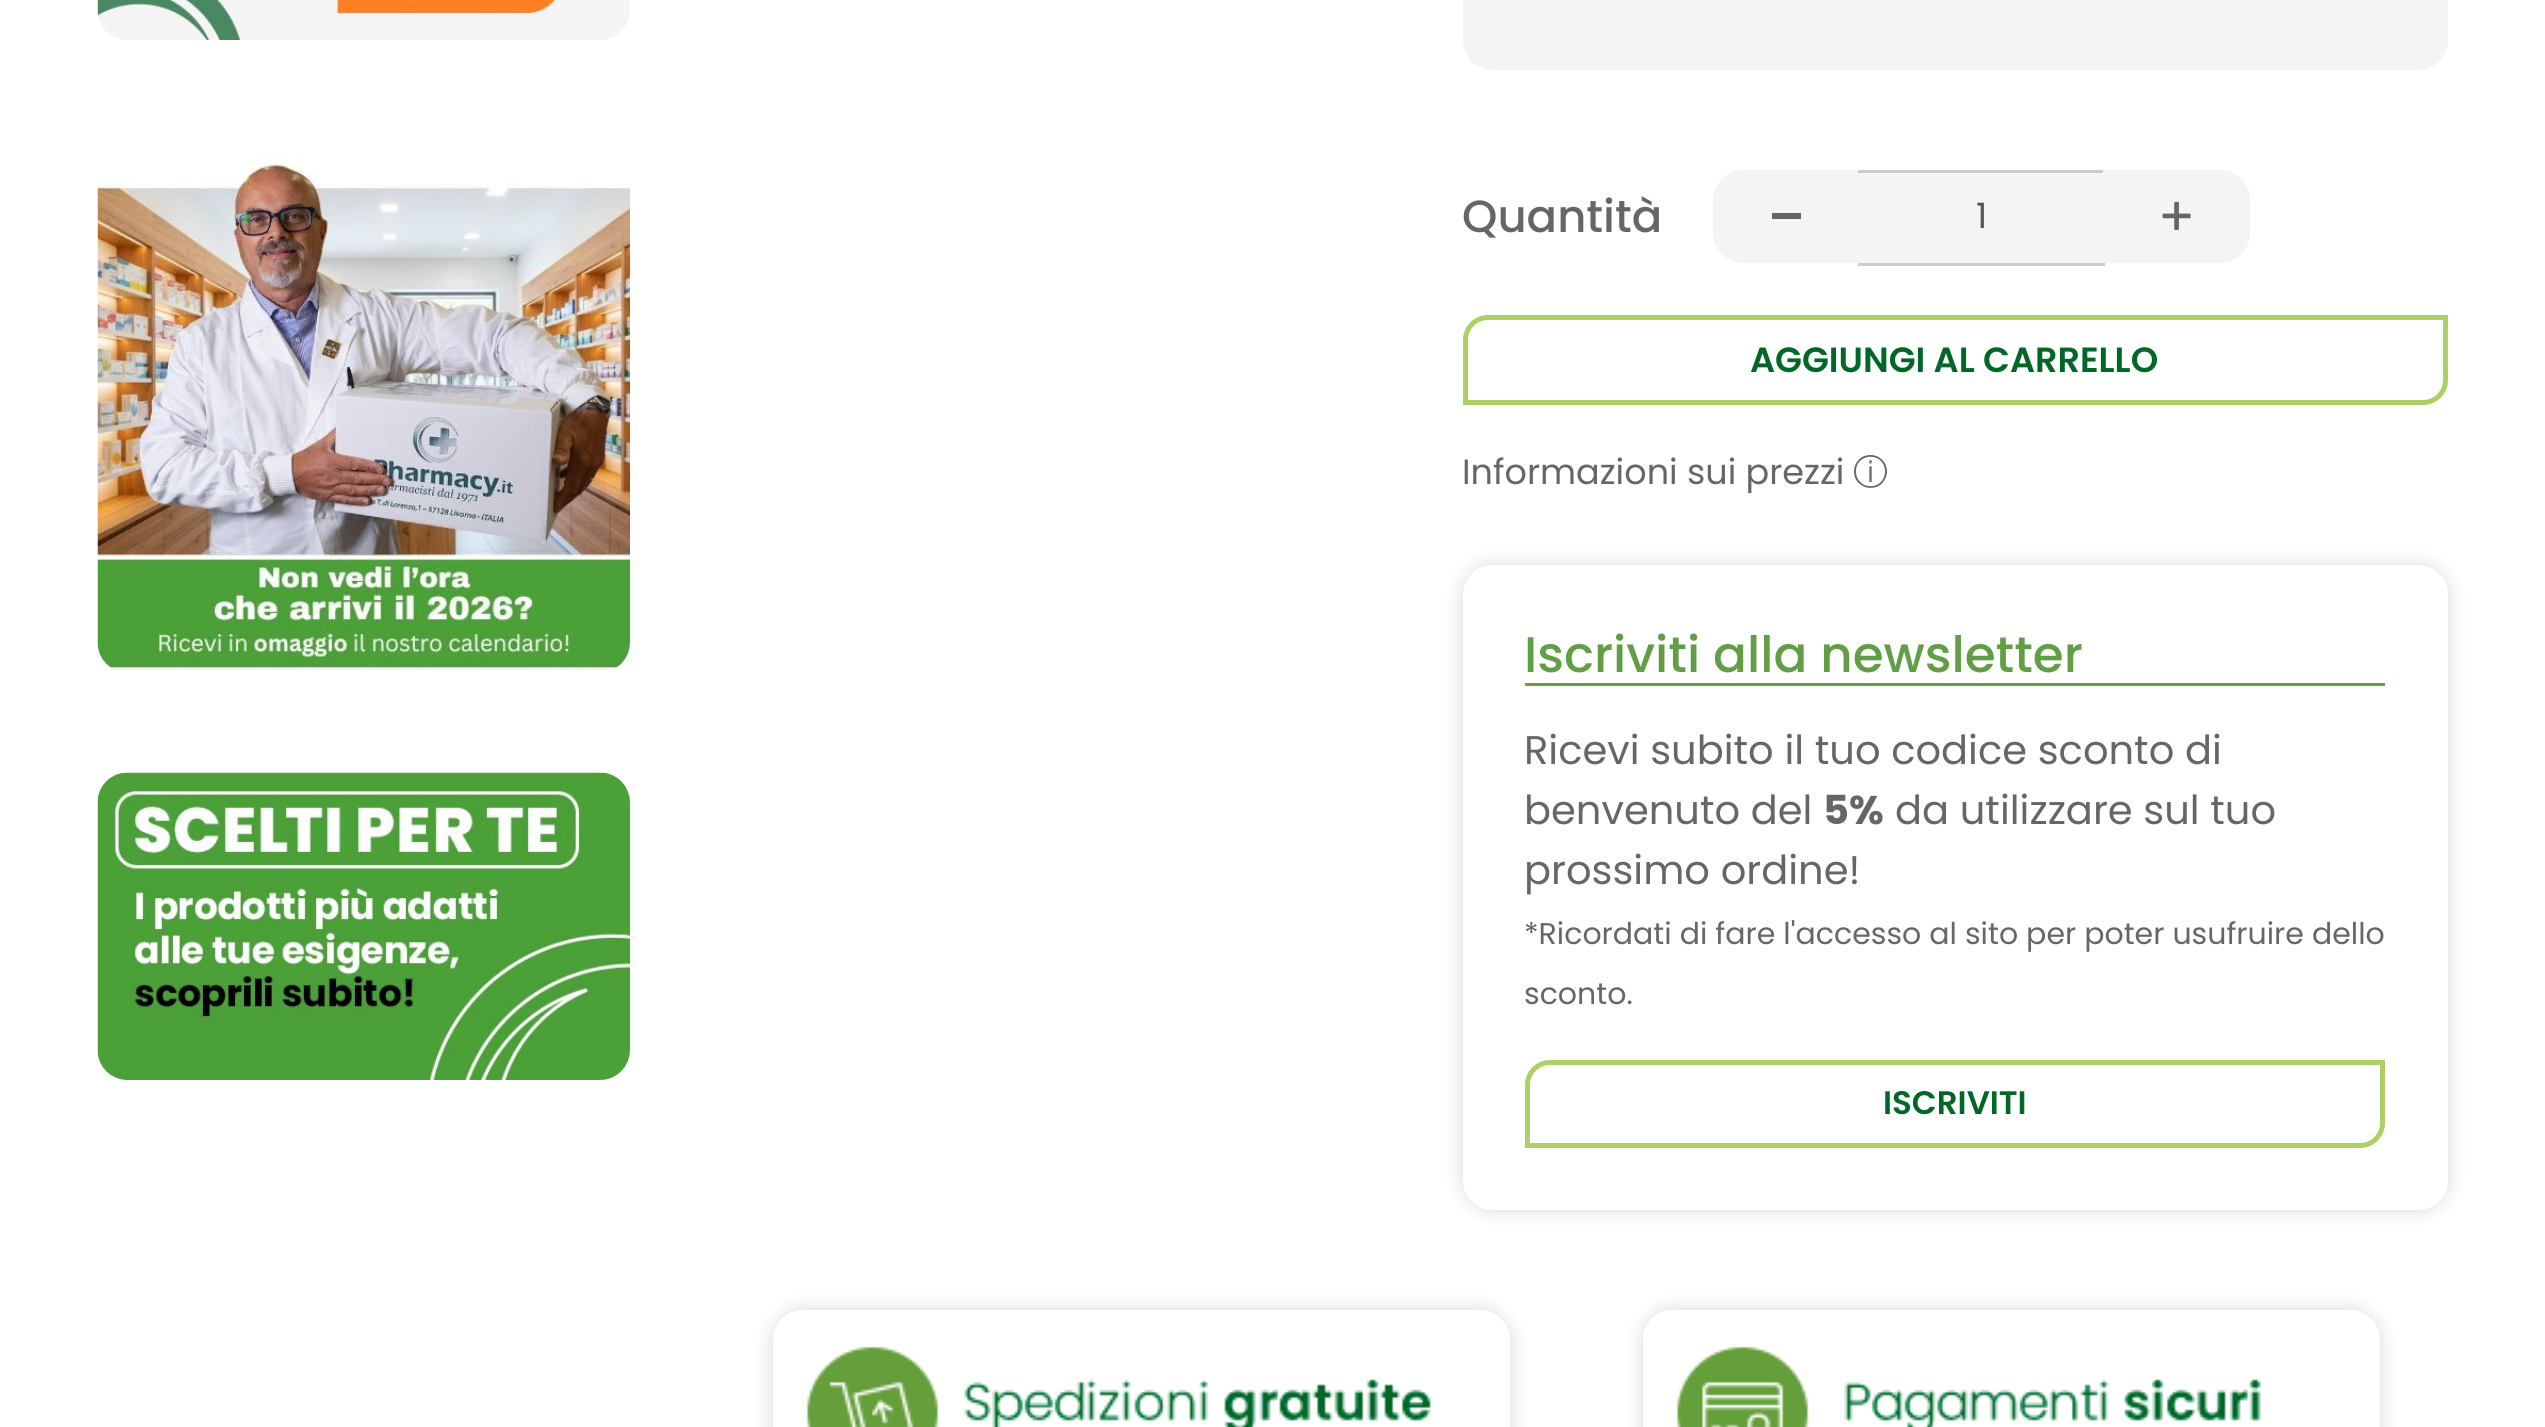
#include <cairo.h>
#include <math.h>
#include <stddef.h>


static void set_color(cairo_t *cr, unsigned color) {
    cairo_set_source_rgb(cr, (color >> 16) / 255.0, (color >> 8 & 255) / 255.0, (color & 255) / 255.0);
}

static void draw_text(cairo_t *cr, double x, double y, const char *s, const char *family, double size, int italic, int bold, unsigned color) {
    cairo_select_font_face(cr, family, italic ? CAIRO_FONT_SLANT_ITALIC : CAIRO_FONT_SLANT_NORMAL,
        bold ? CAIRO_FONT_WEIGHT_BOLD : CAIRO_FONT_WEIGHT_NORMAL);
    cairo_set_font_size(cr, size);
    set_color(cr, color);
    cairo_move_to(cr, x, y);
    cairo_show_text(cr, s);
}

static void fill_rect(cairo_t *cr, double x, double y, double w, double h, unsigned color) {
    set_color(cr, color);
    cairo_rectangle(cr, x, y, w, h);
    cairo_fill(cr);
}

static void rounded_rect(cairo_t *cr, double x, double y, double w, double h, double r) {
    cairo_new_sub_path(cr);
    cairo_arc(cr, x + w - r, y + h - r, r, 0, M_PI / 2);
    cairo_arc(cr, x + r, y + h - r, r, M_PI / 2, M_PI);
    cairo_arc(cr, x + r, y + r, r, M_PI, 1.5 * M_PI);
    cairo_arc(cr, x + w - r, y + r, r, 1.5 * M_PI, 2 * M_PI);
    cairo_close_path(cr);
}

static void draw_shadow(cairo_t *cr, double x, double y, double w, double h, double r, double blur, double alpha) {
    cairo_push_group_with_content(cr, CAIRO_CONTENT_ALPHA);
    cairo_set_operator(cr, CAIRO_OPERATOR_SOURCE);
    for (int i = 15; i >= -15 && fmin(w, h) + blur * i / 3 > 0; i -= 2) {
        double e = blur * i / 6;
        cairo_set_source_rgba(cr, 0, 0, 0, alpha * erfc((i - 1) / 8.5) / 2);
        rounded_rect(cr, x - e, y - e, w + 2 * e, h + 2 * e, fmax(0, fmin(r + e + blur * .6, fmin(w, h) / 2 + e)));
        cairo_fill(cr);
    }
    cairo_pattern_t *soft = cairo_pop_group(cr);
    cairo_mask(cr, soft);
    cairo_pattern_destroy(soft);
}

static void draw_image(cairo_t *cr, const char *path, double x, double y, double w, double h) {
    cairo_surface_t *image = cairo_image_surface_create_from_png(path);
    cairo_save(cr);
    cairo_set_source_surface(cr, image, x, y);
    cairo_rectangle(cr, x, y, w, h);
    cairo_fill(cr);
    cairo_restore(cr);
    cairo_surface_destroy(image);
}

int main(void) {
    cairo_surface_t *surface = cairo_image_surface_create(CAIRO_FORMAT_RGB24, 2545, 1427);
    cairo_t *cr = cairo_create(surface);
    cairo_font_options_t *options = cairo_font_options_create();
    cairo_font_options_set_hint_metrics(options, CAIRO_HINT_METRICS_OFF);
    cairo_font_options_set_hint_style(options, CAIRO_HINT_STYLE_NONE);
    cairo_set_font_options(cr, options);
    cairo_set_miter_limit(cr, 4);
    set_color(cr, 0xFFFFFF);
    cairo_paint(cr);
    draw_image(cr, "assets/img1.png", 97, 0, 533, 40);
    draw_image(cr, "assets/img2.png", 97, 157, 533, 513);
    draw_image(cr, "assets/img3.png", 97, 772, 533, 308);
    set_color(cr, 0xF4F4F4);
    rounded_rect(cr, 1463, -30, 985, 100, 30);
    cairo_fill(cr);
    draw_text(cr, 1462, 232, "Quantità", "Poppins Medium", 45, 0, 0, 0x666666);
    set_color(cr, 0xF4F4F4);
    cairo_new_path(cr);
    cairo_move_to(cr, 1743, 170);
    cairo_line_to(cr, 1860, 170);
    cairo_line_to(cr, 1860, 263);
    cairo_line_to(cr, 1743, 263);
    cairo_curve_to(cr, 1726.5, 263, 1713, 249.5, 1713, 233);
    cairo_line_to(cr, 1713, 200);
    cairo_curve_to(cr, 1713, 183.5, 1726.5, 170, 1743, 170);
    cairo_close_path(cr);
    cairo_fill(cr);
    fill_rect(cr, 1772, 213, 29, 6, 0x666666);
    fill_rect(cr, 1860, 173, 243, 90, 0xF4F4F4);
    fill_rect(cr, 1858, 170, 247, 3, 0xCCCCCC);
    fill_rect(cr, 1858, 263, 247, 3, 0xCCCCCC);
    draw_text(cr, 1976, 228, "1", "Poppins", 35, 0, 0, 0x555555);
    set_color(cr, 0xF4F4F4);
    cairo_new_path(cr);
    cairo_move_to(cr, 2103, 170);
    cairo_line_to(cr, 2220, 170);
    cairo_curve_to(cr, 2236.5, 170, 2250, 183.5, 2250, 200);
    cairo_line_to(cr, 2250, 233);
    cairo_curve_to(cr, 2250, 249.5, 2236.5, 263, 2220, 263);
    cairo_line_to(cr, 2103, 263);
    cairo_close_path(cr);
    cairo_fill(cr);
    draw_image(cr, "assets/img4.png", 2162, 201, 29, 29);
    cairo_new_path(cr);
    cairo_move_to(cr, 1488, 317.5);
    cairo_line_to(cr, 2445.5, 317.5);
    cairo_line_to(cr, 2445.5, 380);
    cairo_curve_to(cr, 2445.5, 392.5, 2435.5, 402.5, 2423, 402.5);
    cairo_line_to(cr, 1465.5, 402.5);
    cairo_line_to(cr, 1465.5, 340);
    cairo_curve_to(cr, 1465.5, 327.5, 1475.5, 317.5, 1488, 317.5);
    cairo_close_path(cr);
    set_color(cr, 0xADCF65);
    cairo_set_line_width(cr, 5);
    cairo_stroke(cr);
    draw_text(cr, 1750, 372, "AGGIUNGI AL CARRELLO", "Poppins SemiBold", 35, 0, 0, 0x006727);
    draw_text(cr, 1462, 484, "Informazioni sui prezzi", "Poppins", 35, 0, 0, 0x666666);
    draw_text(cr, 1853, 484, "ⓘ", "WenQuanYi Zen Hei Medium", 35, 0, 0, 0x666666);
    cairo_save(cr);
    cairo_set_fill_rule(cr, CAIRO_FILL_RULE_EVEN_ODD);
    cairo_new_path(cr);
    cairo_move_to(cr, 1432, 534);
    cairo_line_to(cr, 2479, 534);
    cairo_line_to(cr, 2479, 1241);
    cairo_line_to(cr, 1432, 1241);
    cairo_close_path(cr);
    cairo_move_to(cr, 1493, 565);
    cairo_line_to(cr, 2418, 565);
    cairo_curve_to(cr, 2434.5, 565, 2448, 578.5, 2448, 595);
    cairo_line_to(cr, 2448, 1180);
    cairo_curve_to(cr, 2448, 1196.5, 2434.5, 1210, 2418, 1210);
    cairo_line_to(cr, 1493, 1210);
    cairo_curve_to(cr, 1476.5, 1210, 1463, 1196.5, 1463, 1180);
    cairo_line_to(cr, 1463, 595);
    cairo_curve_to(cr, 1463, 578.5, 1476.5, 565, 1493, 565);
    cairo_close_path(cr);
    cairo_clip(cr);
    set_color(cr, 0x000000);
    draw_shadow(cr, 1463, 565, 985, 645, 30, 10, 0.15);
    cairo_restore(cr);
    fill_rect(cr, 1525, 683, 860, 3, 0x619E46);
    draw_text(cr, 1524, 672, "Iscriviti alla newsletter", "Poppins Medium", 50, 0, 0, 0x619E46);
    draw_text(cr, 1524, 764, "Ricevi subito il tuo codice sconto di", "Poppins", 40, 0, 0, 0x666666);
    draw_text(cr, 1524, 824, "benvenuto del", "Poppins", 40, 0, 0, 0x666666);
    draw_text(cr, 1823, 824, "5%", "Poppins", 40, 0, 1, 0x666666);
    draw_text(cr, 1895, 824, "da utilizzare sul tuo", "Poppins", 40, 0, 0, 0x666666);
    draw_text(cr, 1524, 884, "prossimo ordine!", "Poppins", 40, 0, 0, 0x666666);
    draw_text(cr, 1524, 944, "*Ricordati di fare l'accesso al sito per poter usufruire dello", "Poppins", 30, 0, 0, 0x666666);
    draw_text(cr, 1524, 1004, "sconto.", "Poppins", 30, 0, 0, 0x666666);
    cairo_new_path(cr);
    cairo_move_to(cr, 1550, 1062.5);
    cairo_line_to(cr, 2382.5, 1062.5);
    cairo_line_to(cr, 2382.5, 1123);
    cairo_curve_to(cr, 2382.5, 1135.5, 2372.5, 1145.5, 2360, 1145.5);
    cairo_line_to(cr, 1527.5, 1145.5);
    cairo_line_to(cr, 1527.5, 1085);
    cairo_curve_to(cr, 1527.5, 1072.5, 1537.5, 1062.5, 1550, 1062.5);
    cairo_close_path(cr);
    set_color(cr, 0xADCF65);
    cairo_stroke(cr);
    draw_text(cr, 1883, 1114, "ISCRIVITI", "Poppins SemiBold", 32.5, 0, 0, 0x006727);
    cairo_save(cr);
    cairo_set_fill_rule(cr, CAIRO_FILL_RULE_EVEN_ODD);
    cairo_new_path(cr);
    cairo_move_to(cr, 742, 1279);
    cairo_line_to(cr, 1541, 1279);
    cairo_line_to(cr, 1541, 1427);
    cairo_line_to(cr, 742, 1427);
    cairo_close_path(cr);
    cairo_move_to(cr, 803, 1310);
    cairo_line_to(cr, 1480, 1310);
    cairo_curve_to(cr, 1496.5, 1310, 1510, 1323.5, 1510, 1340);
    cairo_line_to(cr, 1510, 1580);
    cairo_curve_to(cr, 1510, 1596.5, 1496.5, 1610, 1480, 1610);
    cairo_line_to(cr, 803, 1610);
    cairo_curve_to(cr, 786.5, 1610, 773, 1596.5, 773, 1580);
    cairo_line_to(cr, 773, 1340);
    cairo_curve_to(cr, 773, 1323.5, 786.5, 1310, 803, 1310);
    cairo_close_path(cr);
    cairo_clip(cr);
    set_color(cr, 0x000000);
    draw_shadow(cr, 773, 1310, 737, 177, 30, 10, 0.15);
    cairo_restore(cr);
    draw_image(cr, "assets/img5.png", 790, 1310, 696, 117);
    cairo_save(cr);
    cairo_set_fill_rule(cr, CAIRO_FILL_RULE_EVEN_ODD);
    cairo_new_path(cr);
    cairo_move_to(cr, 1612, 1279);
    cairo_line_to(cr, 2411, 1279);
    cairo_line_to(cr, 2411, 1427);
    cairo_line_to(cr, 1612, 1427);
    cairo_close_path(cr);
    cairo_move_to(cr, 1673, 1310);
    cairo_line_to(cr, 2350, 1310);
    cairo_curve_to(cr, 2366.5, 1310, 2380, 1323.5, 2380, 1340);
    cairo_line_to(cr, 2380, 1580);
    cairo_curve_to(cr, 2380, 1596.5, 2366.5, 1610, 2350, 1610);
    cairo_line_to(cr, 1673, 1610);
    cairo_curve_to(cr, 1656.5, 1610, 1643, 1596.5, 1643, 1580);
    cairo_line_to(cr, 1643, 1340);
    cairo_curve_to(cr, 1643, 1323.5, 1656.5, 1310, 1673, 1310);
    cairo_close_path(cr);
    cairo_clip(cr);
    set_color(cr, 0x000000);
    draw_shadow(cr, 1643, 1310, 737, 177, 30, 10, 0.15);
    cairo_restore(cr);
    draw_image(cr, "assets/img6.png", 1660, 1310, 696, 117);
    cairo_surface_write_to_png(surface, "output.png");
    cairo_font_options_destroy(options);
    cairo_destroy(cr);
    cairo_surface_destroy(surface);
    return 0;
}
